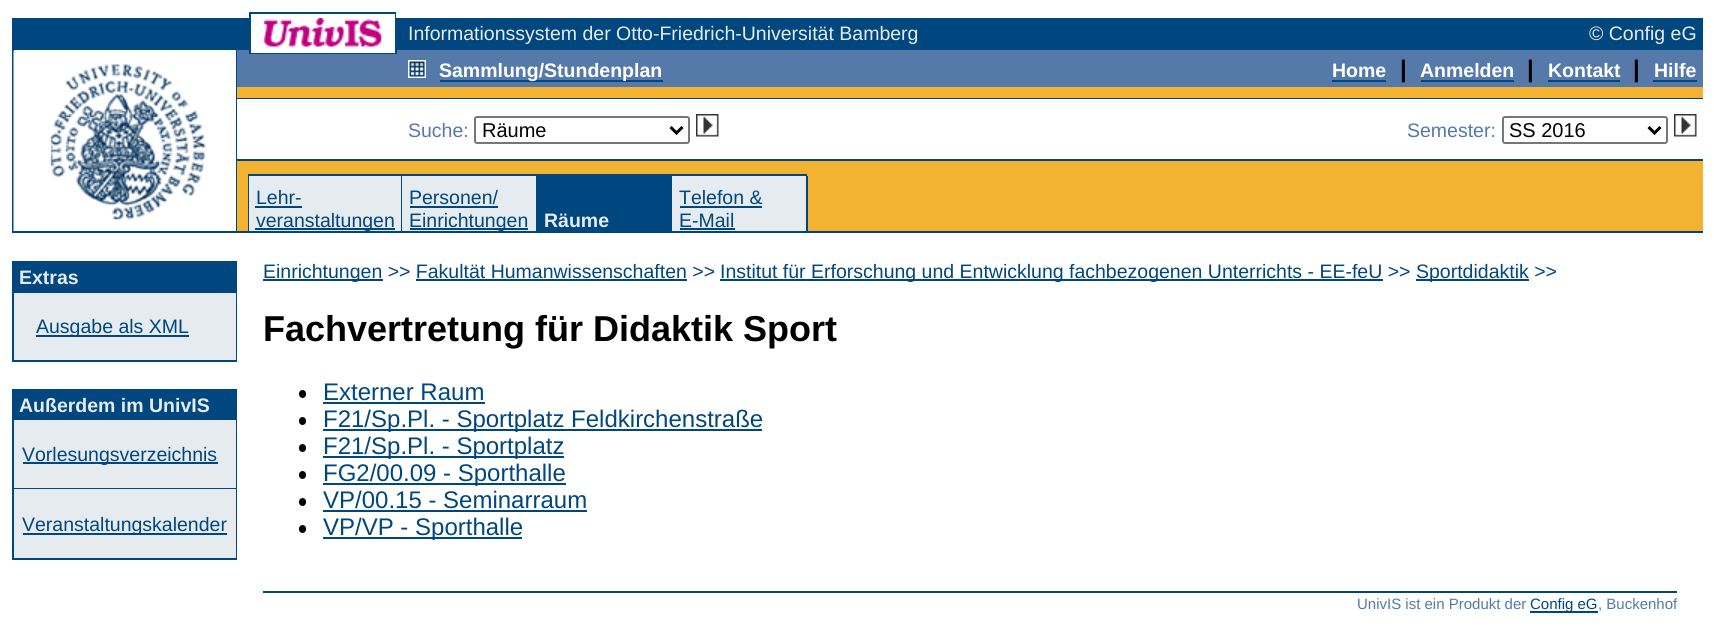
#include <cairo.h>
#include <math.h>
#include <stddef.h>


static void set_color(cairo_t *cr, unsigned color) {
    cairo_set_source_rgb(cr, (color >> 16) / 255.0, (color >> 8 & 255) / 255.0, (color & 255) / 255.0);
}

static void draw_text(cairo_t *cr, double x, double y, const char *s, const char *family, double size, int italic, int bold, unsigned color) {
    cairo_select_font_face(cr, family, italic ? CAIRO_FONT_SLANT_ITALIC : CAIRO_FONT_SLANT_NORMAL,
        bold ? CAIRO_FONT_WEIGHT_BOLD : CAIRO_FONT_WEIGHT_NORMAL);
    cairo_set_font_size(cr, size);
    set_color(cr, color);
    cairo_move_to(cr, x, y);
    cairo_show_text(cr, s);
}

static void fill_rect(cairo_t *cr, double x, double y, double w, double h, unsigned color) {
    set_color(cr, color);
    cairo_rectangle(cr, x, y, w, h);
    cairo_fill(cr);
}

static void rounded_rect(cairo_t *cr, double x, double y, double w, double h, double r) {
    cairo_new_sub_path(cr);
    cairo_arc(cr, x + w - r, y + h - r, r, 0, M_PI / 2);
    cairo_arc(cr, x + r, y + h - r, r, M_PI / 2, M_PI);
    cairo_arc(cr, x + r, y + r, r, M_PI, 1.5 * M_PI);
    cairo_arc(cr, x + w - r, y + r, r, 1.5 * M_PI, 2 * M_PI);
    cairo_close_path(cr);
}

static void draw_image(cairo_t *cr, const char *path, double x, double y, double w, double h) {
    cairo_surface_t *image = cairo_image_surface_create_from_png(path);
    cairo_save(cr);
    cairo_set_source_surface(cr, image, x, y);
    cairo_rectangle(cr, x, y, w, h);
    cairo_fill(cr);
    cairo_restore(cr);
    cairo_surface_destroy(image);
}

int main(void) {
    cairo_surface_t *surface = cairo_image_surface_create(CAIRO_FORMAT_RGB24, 1714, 639);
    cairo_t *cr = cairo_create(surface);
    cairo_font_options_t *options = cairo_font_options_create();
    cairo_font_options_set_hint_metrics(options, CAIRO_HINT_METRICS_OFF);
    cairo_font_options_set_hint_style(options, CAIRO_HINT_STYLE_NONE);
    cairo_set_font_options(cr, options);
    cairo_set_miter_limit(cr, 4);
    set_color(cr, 0xFFFFFF);
    cairo_paint(cr);
    fill_rect(cr, 249, 12, 148, 2, 0x00467F);
    fill_rect(cr, 396, 12, 1, 2, 0xFFFFFF);
    fill_rect(cr, 249, 14, 2, 5, 0x00467F);
    fill_rect(cr, 395, 14, 1, 34, 0x00467F);
    fill_rect(cr, 12, 18, 239, 30, 0x00467F);
    draw_image(cr, "assets/img1.png", 263, 18, 120, 29);
    fill_rect(cr, 396, 18, 1307, 30, 0x00467F);
    draw_text(cr, 408, 40, "Informationssystem der Otto-Friedrich-Universität Bamberg", "Liberation Sans", 19.5, 0, 0, 0xE5EBEF);
    draw_text(cr, 1589, 40, "© Config eG", "Liberation Sans", 19.5, 0, 0, 0xE5EBEF);
    fill_rect(cr, 12, 48, 1691, 2, 0x00467F);
    fill_rect(cr, 251, 48, 144, 2, 0xFFFFFF);
    fill_rect(cr, 12, 50, 2, 183, 0x00467F);
    fill_rect(cr, 236, 50, 1, 181, 0x00467F);
    draw_image(cr, "assets/img2.png", 13, 51, 193, 180);
    fill_rect(cr, 237, 87, 1466, 144, 0xF3B231);
    fill_rect(cr, 237, 50, 1466, 3, 0x557AA9);
    fill_rect(cr, 249, 50, 2, 3, 0x00467F);
    fill_rect(cr, 251, 50, 144, 3, 0xFFFFFF);
    fill_rect(cr, 395, 50, 2, 3, 0x00467F);
    fill_rect(cr, 237, 53, 1466, 3, 0x557AA9);
    fill_rect(cr, 249, 53, 148, 1, 0x00467F);
    fill_rect(cr, 237, 56, 1466, 31, 0x557AA9);
    draw_image(cr, "assets/img3.png", 408, 60, 18, 18);
    fill_rect(cr, 440, 80, 223, 2, 0x00467F);
    draw_text(cr, 439, 77, "Sammlung/Stundenplan", "Liberation Sans", 19.5, 0, 1, 0xFFFFFF);
    draw_text(cr, 1332, 77, "Home", "Liberation Sans", 19.5, 0, 1, 0xFFFFFF);
    fill_rect(cr, 1332, 80, 54, 2, 0x00467F);
    draw_text(cr, 1400, 77, "|", "Liberation Sans", 24, 0, 1, 0x000000);
    draw_text(cr, 1420, 77, "Anmelden", "Liberation Sans", 19.5, 0, 1, 0xFFFFFF);
    fill_rect(cr, 1421, 80, 93, 2, 0x00467F);
    draw_text(cr, 1527, 77, "|", "Liberation Sans", 24, 0, 1, 0x000000);
    draw_text(cr, 1548, 77, "Kontakt", "Liberation Sans", 19.5, 0, 1, 0xFFFFFF);
    fill_rect(cr, 1548, 80, 72, 2, 0x00467F);
    draw_text(cr, 1633, 77, "|", "Liberation Sans", 24, 0, 1, 0x000000);
    draw_text(cr, 1654, 77, "Hilfe", "Liberation Sans", 19.5, 0, 1, 0xFFFFFF);
    fill_rect(cr, 1653, 80, 44, 2, 0x00467F);
    fill_rect(cr, 237, 98, 1466, 1, 0x00467F);
    fill_rect(cr, 237, 99, 1466, 60, 0xFFFFFF);
    draw_text(cr, 408, 137, "Suche:", "Liberation Sans", 19.5, 0, 0, 0x557AA9);
    rounded_rect(cr, 475, 117, 214, 26, 2);
    set_color(cr, 0x767676);
    cairo_stroke(cr);
    cairo_new_path(cr);
    cairo_move_to(cr, 670.5, 127);
    cairo_line_to(cr, 676.5, 133);
    cairo_line_to(cr, 682.5, 127);
    set_color(cr, 0x000000);
    cairo_set_line_width(cr, 3);
    cairo_stroke(cr);
    draw_text(cr, 482, 137, "Räume", "Liberation Sans", 20, 0, 0, 0x000000);
    draw_image(cr, "assets/img4.png", 696, 114, 23, 23);
    draw_text(cr, 1407, 137, "Semester:", "Liberation Sans", 19.5, 0, 0, 0x557AA9);
    rounded_rect(cr, 1503, 117, 164, 26, 2);
    set_color(cr, 0x767676);
    cairo_set_line_width(cr, 2);
    cairo_stroke(cr);
    cairo_new_path(cr);
    cairo_move_to(cr, 1648.5, 127);
    cairo_line_to(cr, 1654.5, 133);
    cairo_line_to(cr, 1660.5, 127);
    set_color(cr, 0x000000);
    cairo_set_line_width(cr, 3);
    cairo_stroke(cr);
    draw_text(cr, 1509, 137, "SS 2016", "Liberation Sans", 20, 0, 0, 0x000000);
    draw_image(cr, "assets/img4.png", 1674, 114, 23, 23);
    fill_rect(cr, 237, 159, 1466, 2, 0x00467F);
    fill_rect(cr, 248, 174, 559, 2, 0x00467F);
    fill_rect(cr, 248, 176, 1, 55, 0x00467F);
    fill_rect(cr, 249, 176, 152, 55, 0xE5EBEF);
    fill_rect(cr, 401, 176, 1, 55, 0x00467F);
    fill_rect(cr, 402, 176, 134, 55, 0xE5EBEF);
    fill_rect(cr, 536, 176, 136, 55, 0x00467F);
    fill_rect(cr, 672, 176, 134, 55, 0xE5EBEF);
    fill_rect(cr, 806, 176, 2, 55, 0x00467F);
    draw_text(cr, 256, 204, "Lehr-", "Liberation Sans", 19.5, 0, 0, 0x00467F);
    fill_rect(cr, 255, 206, 47, 2, 0x00467F);
    fill_rect(cr, 255, 228, 140, 2, 0x00467F);
    fill_rect(cr, 14, 231, 1689, 2, 0x00467F);
    draw_text(cr, 256, 227, "veranstaltungen", "Liberation Sans", 19.5, 0, 0, 0x00467F);
    draw_text(cr, 409, 204, "Personen/", "Liberation Sans", 19.5, 0, 0, 0x00467F);
    fill_rect(cr, 410, 206, 88, 2, 0x00467F);
    fill_rect(cr, 410, 228, 118, 2, 0x00467F);
    draw_text(cr, 409, 227, "Einrichtungen", "Liberation Sans", 19.5, 0, 0, 0x00467F);
    draw_text(cr, 544, 227, "Räume", "Liberation Sans", 19.5, 0, 1, 0xE5EBEF);
    draw_text(cr, 679, 204, "Telefon &", "Liberation Sans", 19.5, 0, 0, 0x00467F);
    fill_rect(cr, 680, 206, 82, 2, 0x00467F);
    draw_text(cr, 679, 227, "E-Mail", "Liberation Sans", 19.5, 0, 0, 0x00467F);
    fill_rect(cr, 680, 228, 55, 2, 0x00467F);
    fill_rect(cr, 12, 261, 2, 101, 0x00467F);
    fill_rect(cr, 14, 261, 222, 32, 0x00467F);
    fill_rect(cr, 236, 261, 1, 101, 0x00467F);
    draw_text(cr, 19, 284, "Extras", "Liberation Sans", 19.5, 0, 1, 0xE5EBEF);
    fill_rect(cr, 14, 293, 222, 67, 0xE5EBEF);
    fill_rect(cr, 36, 335, 153, 2, 0x00467F);
    draw_text(cr, 36, 333, "Ausgabe als XML", "Liberation Sans", 19.5, 0, 0, 0x00467F);
    fill_rect(cr, 14, 360, 222, 2, 0x00467F);
    fill_rect(cr, 12, 389, 2, 171, 0x00467F);
    fill_rect(cr, 14, 389, 222, 31, 0x00467F);
    fill_rect(cr, 236, 389, 1, 171, 0x00467F);
    draw_text(cr, 19, 412, "Außerdem im UnivIS", "Liberation Sans", 19.5, 0, 1, 0xE5EBEF);
    fill_rect(cr, 14, 420, 222, 68, 0xE5EBEF);
    fill_rect(cr, 23, 462, 195, 2, 0x00467F);
    draw_text(cr, 22, 461, "Vorlesungsverzeichnis", "Liberation Sans", 19.5, 0, 0, 0x00467F);
    fill_rect(cr, 14, 488, 222, 1, 0x00467F);
    fill_rect(cr, 14, 489, 222, 2, 0xE5EBEF);
    fill_rect(cr, 14, 491, 222, 67, 0xE5EBEF);
    fill_rect(cr, 23, 533, 204, 2, 0x00467F);
    draw_text(cr, 22, 531, "Veranstaltungskalender", "Liberation Sans", 19.5, 0, 0, 0x00467F);
    fill_rect(cr, 14, 558, 222, 2, 0x00467F);
    fill_rect(cr, 263, 279, 120, 2, 0x00467F);
    draw_text(cr, 263, 278, "Einrichtungen >> Fakultät Humanwissenschaften >>", "Liberation Sans", 19.5, 0, 0, 0x00467F);
    fill_rect(cr, 416, 279, 271, 2, 0x00467F);
    fill_rect(cr, 720, 279, 663, 2, 0x00467F);
    draw_text(cr, 720, 278, "Institut für Erforschung und Entwicklung fachbezogenen Unterrichts - EE-feU >>", "Liberation Sans", 19.5, 0, 0, 0x00467F);
    fill_rect(cr, 1416, 279, 113, 2, 0x00467F);
    draw_text(cr, 1416, 278, "Sportdidaktik >>", "Liberation Sans", 19.5, 0, 0, 0x00467F);
    draw_text(cr, 263, 341, "Fachvertretung für Didaktik Sport", "Liberation Sans", 36, 0, 1, 0x000000);
    rounded_rect(cr, 299, 390, 7, 8, 3.5);
    cairo_fill(cr);
    draw_text(cr, 323, 400, "Externer Raum", "Liberation Sans", 24, 0, 0, 0x00467F);
    fill_rect(cr, 323, 402, 162, 2, 0x00467F);
    set_color(cr, 0x000000);
    rounded_rect(cr, 299, 417, 7, 8, 3.5);
    cairo_fill(cr);
    fill_rect(cr, 323, 429, 439, 2, 0x00467F);
    draw_text(cr, 323, 427, "F21/Sp.Pl. - Sportplatz Feldkirchenstraße", "Liberation Sans", 24, 0, 0, 0x00467F);
    set_color(cr, 0x000000);
    rounded_rect(cr, 299, 444, 7, 8, 3.5);
    cairo_fill(cr);
    fill_rect(cr, 323, 456, 241, 2, 0x00467F);
    draw_text(cr, 323, 454, "F21/Sp.Pl. - Sportplatz", "Liberation Sans", 24, 0, 0, 0x00467F);
    set_color(cr, 0x000000);
    rounded_rect(cr, 299, 471, 7, 8, 3.5);
    cairo_fill(cr);
    fill_rect(cr, 323, 483, 243, 2, 0x00467F);
    draw_text(cr, 323, 481, "FG2/00.09 - Sporthalle", "Liberation Sans", 24, 0, 0, 0x00467F);
    set_color(cr, 0x000000);
    rounded_rect(cr, 299, 498, 7, 8, 3.5);
    cairo_fill(cr);
    draw_text(cr, 323, 508, "VP/00.15 - Seminarraum", "Liberation Sans", 24, 0, 0, 0x00467F);
    fill_rect(cr, 323, 510, 264, 2, 0x00467F);
    set_color(cr, 0x000000);
    rounded_rect(cr, 299, 525, 7, 8, 3.5);
    cairo_fill(cr);
    fill_rect(cr, 323, 537, 199, 2, 0x00467F);
    draw_text(cr, 323, 535, "VP/VP - Sporthalle", "Liberation Sans", 24, 0, 0, 0x00467F);
    fill_rect(cr, 263, 591, 1414, 2, 0x00467F);
    draw_text(cr, 1357, 609, "UnivIS ist ein Produkt der", "Liberation Sans", 15, 0, 0, 0x557AA9);
    fill_rect(cr, 1530, 611, 68, 2, 0x00467F);
    draw_text(cr, 1530, 609, "Config eG", "Liberation Sans", 15, 0, 0, 0x00467F);
    draw_text(cr, 1598, 609, ", Buckenhof", "Liberation Sans", 15, 0, 0, 0x557AA9);
    cairo_surface_write_to_png(surface, "output.png");
    cairo_font_options_destroy(options);
    cairo_destroy(cr);
    cairo_surface_destroy(surface);
    return 0;
}
